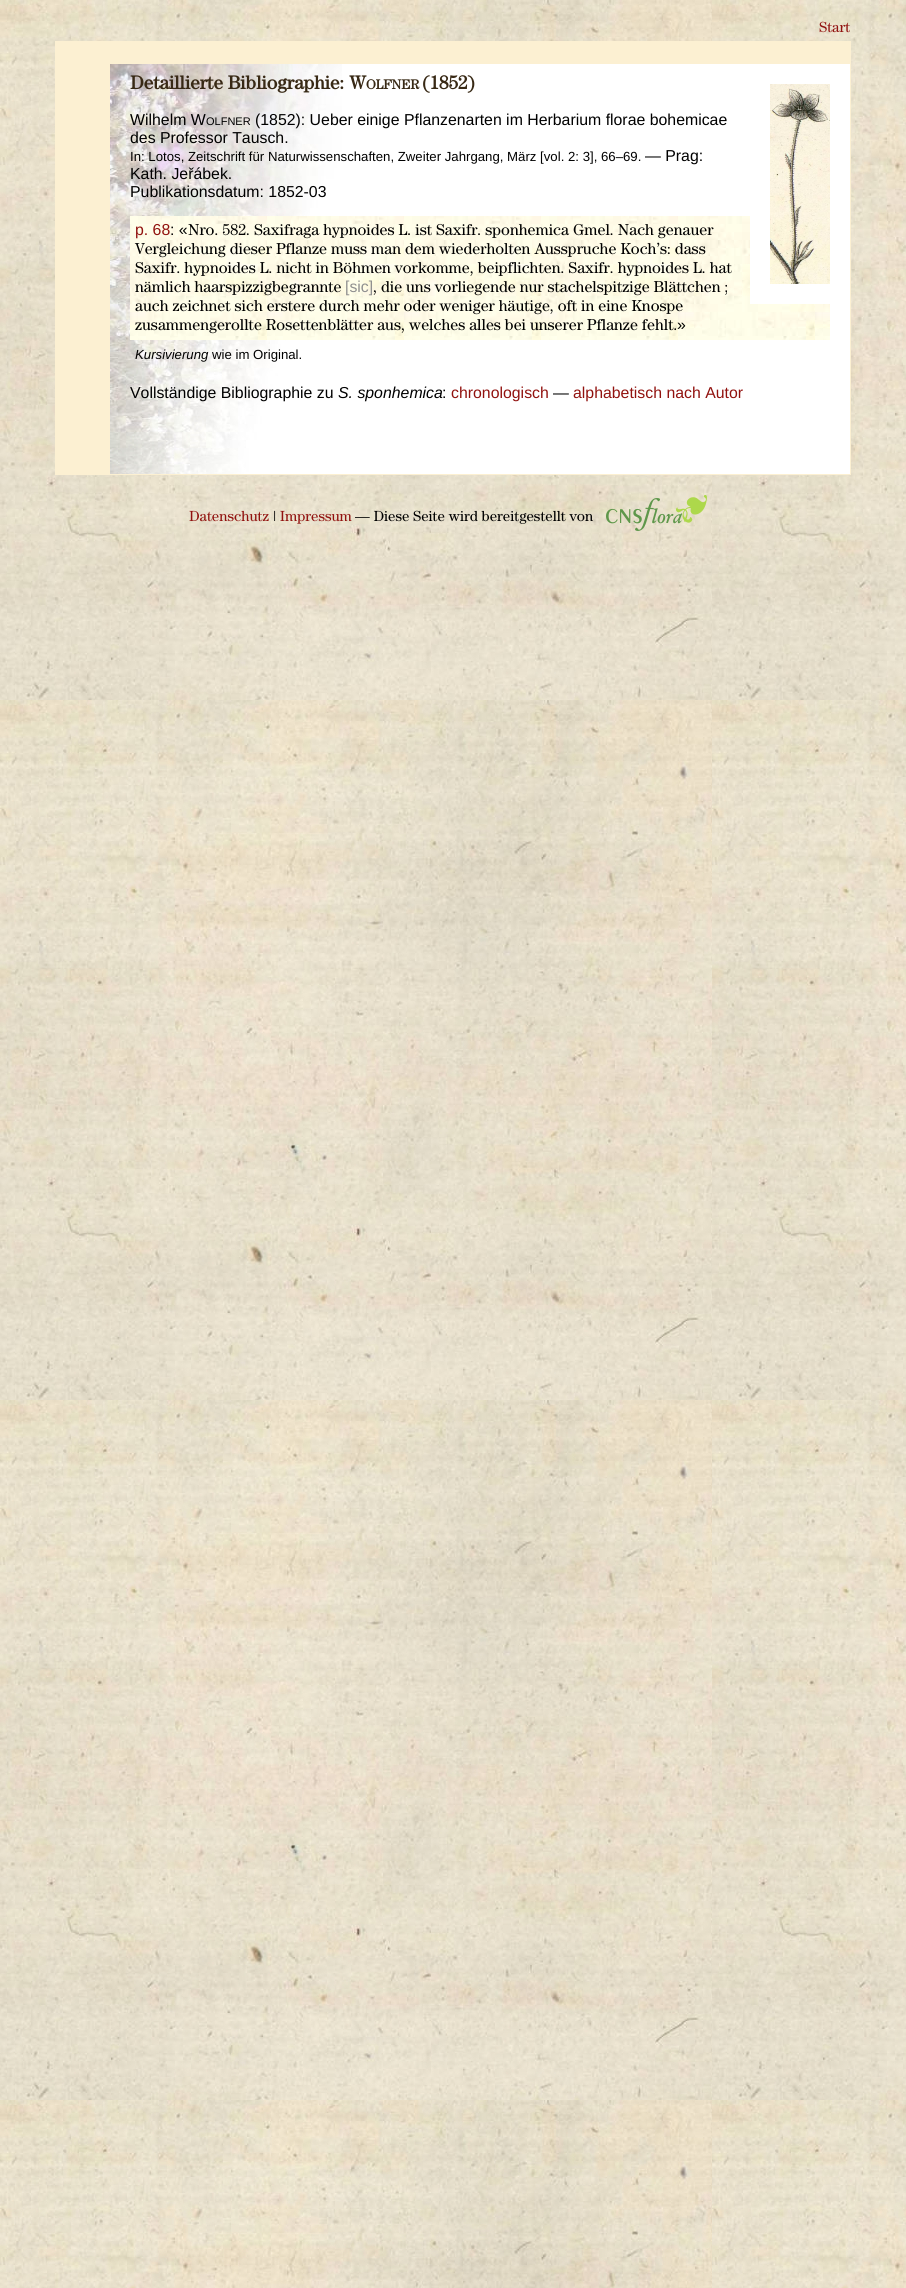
#include <cairo.h>
#include <math.h>
#include <stddef.h>


static void set_color(cairo_t *cr, unsigned color) {
    cairo_set_source_rgb(cr, (color >> 16) / 255.0, (color >> 8 & 255) / 255.0, (color & 255) / 255.0);
}

static void draw_text(cairo_t *cr, double x, double y, const char *s, const char *family, double size, int italic, int bold, unsigned color) {
    cairo_select_font_face(cr, family, italic ? CAIRO_FONT_SLANT_ITALIC : CAIRO_FONT_SLANT_NORMAL,
        bold ? CAIRO_FONT_WEIGHT_BOLD : CAIRO_FONT_WEIGHT_NORMAL);
    cairo_set_font_size(cr, size);
    set_color(cr, color);
    cairo_move_to(cr, x, y);
    cairo_show_text(cr, s);
}

static void fill_rect(cairo_t *cr, double x, double y, double w, double h, unsigned color) {
    set_color(cr, color);
    cairo_rectangle(cr, x, y, w, h);
    cairo_fill(cr);
}

static void draw_image(cairo_t *cr, const char *path, double x, double y, double w, double h) {
    cairo_surface_t *image = cairo_image_surface_create_from_png(path);
    cairo_save(cr);
    cairo_set_source_surface(cr, image, x, y);
    cairo_rectangle(cr, x, y, w, h);
    cairo_fill(cr);
    cairo_restore(cr);
    cairo_surface_destroy(image);
}

int main(void) {
    cairo_surface_t *surface = cairo_image_surface_create(CAIRO_FORMAT_RGB24, 906, 2288);
    cairo_t *cr = cairo_create(surface);
    cairo_font_options_t *options = cairo_font_options_create();
    cairo_font_options_set_hint_metrics(options, CAIRO_HINT_METRICS_OFF);
    cairo_font_options_set_hint_style(options, CAIRO_HINT_STYLE_NONE);
    cairo_set_font_options(cr, options);
    cairo_set_miter_limit(cr, 4);
    set_color(cr, 0xFFFFFF);
    cairo_paint(cr);
    draw_image(cr, "assets/img1.png", 0, 0, 906, 2288);
    draw_text(cr, 819, 32, "Start", "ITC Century", 14.7, 0, 0, 0x91120F);
    fill_rect(cr, 55, 41, 796, 434, 0xFCF0D2);
    fill_rect(cr, 342, 64, 508, 410, 0xFFFFFF);
    draw_image(cr, "assets/img2.png", 110, 64, 232, 410);
    draw_text(cr, 130, 89, "Detaillierte Bibliographie: W", "ITC Century", 19, 0, 1, 0x382915);
    draw_text(cr, 366, 89, "OLFNER", "ITC Century", 13.5, 0, 1, 0x382915);
    draw_text(cr, 422, 89, "(1852)", "ITC Century", 19, 0, 1, 0x382915);
    draw_image(cr, "assets/img4.png", 130, 216, 700, 124);
    fill_rect(cr, 770, 284, 60, 20, 0xFFFFFF);
    fill_rect(cr, 750, 216, 20, 88, 0xFFFFFF);
    draw_image(cr, "assets/img3.png", 770, 84, 60, 200);
    draw_text(cr, 130, 125, "Wilhelm W", "Liberation Sans", 15.85, 0, 0, 0x000000);
    draw_text(cr, 206, 125, "OLFNER", "Liberation Sans", 11, 0, 0, 0x000000);
    draw_text(cr, 255, 125, "(1852): Ueber einige Pflanzenarten im Herbarium florae bohemicae", "Liberation Sans", 15.85, 0, 0, 0x000000);
    draw_text(cr, 130, 143, "des Professor Tausch.", "Liberation Sans", 15.85, 0, 0, 0x000000);
    draw_text(cr, 130, 161, "In: Lotos, Zeitschrift für Naturwissenschaften, Zweiter Jahrgang, März [vol. 2: 3], 66–69.", "Liberation Sans", 13.2, 0, 0, 0x000000);
    draw_text(cr, 645, 161, "— Prag:", "Liberation Sans", 15.85, 0, 0, 0x000000);
    draw_text(cr, 130, 179, "Kath. Jeřábek.", "Liberation Sans", 15.85, 0, 0, 0x000000);
    draw_text(cr, 130, 197, "Publikationsdatum: 1852-03", "Liberation Sans", 15.85, 0, 0, 0x000000);
    draw_text(cr, 135, 235, "p. 68", "Liberation Sans", 15.85, 0, 0, 0x91120F);
    draw_text(cr, 170, 235, ": «", "Liberation Sans", 15.85, 0, 0, 0x000000);
    draw_text(cr, 188, 235, "Nro. 582. Saxifraga hypnoides L. ist Saxifr. sponhemica Gmel. Nach genauer", "ITC Century", 15.85, 0, 0, 0x000000);
    draw_text(cr, 135, 254, "Vergleichung dieser Pflanze muss man dem wiederholten Ausspruche Koch’s: dass", "ITC Century", 15.85, 0, 0, 0x000000);
    draw_text(cr, 135, 273, "Saxifr. hypnoides L. nicht in Böhmen vorkomme, beipflichten. Saxifr. hypnoides L. hat", "ITC Century", 15.85, 0, 0, 0x000000);
    draw_text(cr, 135, 292, "nämlich haarspizzigbegrannte", "ITC Century", 15.85, 0, 0, 0x000000);
    draw_text(cr, 345, 292, "[sic]", "Liberation Sans", 15.85, 0, 0, 0x909090);
    draw_text(cr, 373, 292, ", die uns vorliegende nur stachelspitzige Blättchen ;", "ITC Century", 15.85, 0, 0, 0x000000);
    draw_text(cr, 135, 311, "auch zeichnet sich erstere durch mehr oder weniger häutige, oft in eine Knospe", "ITC Century", 15.85, 0, 0, 0x000000);
    draw_text(cr, 135, 330, "zusammengerollte Rosettenblätter aus, welches alles bei unserer Pflanze fehlt.", "ITC Century", 15.85, 0, 0, 0x000000);
    draw_text(cr, 677, 330, "»", "Liberation Sans", 15.85, 0, 0, 0x000000);
    draw_text(cr, 135, 359, "Kursivierung", "Liberation Sans", 13.2, 1, 0, 0x000000);
    draw_text(cr, 212, 359, "wie im Original.", "Liberation Sans", 13.2, 0, 0, 0x000000);
    draw_text(cr, 130, 398, "Vollständige Bibliographie zu", "Liberation Sans", 15.85, 0, 0, 0x000000);
    draw_text(cr, 338, 398, "S. sponhemica", "Liberation Sans", 15.85, 1, 0, 0x000000);
    draw_text(cr, 442, 398, ":", "Liberation Sans", 15.85, 0, 0, 0x000000);
    draw_text(cr, 451, 398, "chronologisch", "Liberation Sans", 15.85, 0, 0, 0x91120F);
    draw_text(cr, 553, 398, "—", "Liberation Sans", 15.85, 0, 0, 0x000000);
    draw_text(cr, 573, 398, "alphabetisch nach Autor", "Liberation Sans", 15.85, 0, 0, 0x91120F);
    draw_text(cr, 189, 521, "Datenschutz", "ITC Century", 14.7, 0, 0, 0x91120F);
    draw_text(cr, 273, 521, "|", "ITC Century", 14.7, 0, 0, 0x000000);
    draw_text(cr, 280, 521, "Impressum", "ITC Century", 14.7, 0, 0, 0x91120F);
    draw_text(cr, 355, 521, "— Diese Seite wird bereitgestellt von", "ITC Century", 14.7, 0, 0, 0x000000);
    draw_image(cr, "assets/img5.png", 606, 495, 101, 36);
    cairo_surface_write_to_png(surface, "output.png");
    cairo_font_options_destroy(options);
    cairo_destroy(cr);
    cairo_surface_destroy(surface);
    return 0;
}
